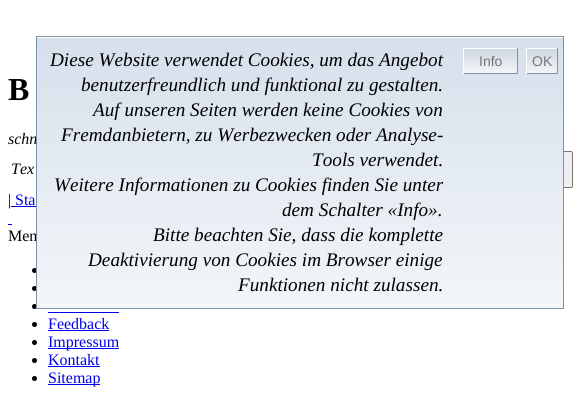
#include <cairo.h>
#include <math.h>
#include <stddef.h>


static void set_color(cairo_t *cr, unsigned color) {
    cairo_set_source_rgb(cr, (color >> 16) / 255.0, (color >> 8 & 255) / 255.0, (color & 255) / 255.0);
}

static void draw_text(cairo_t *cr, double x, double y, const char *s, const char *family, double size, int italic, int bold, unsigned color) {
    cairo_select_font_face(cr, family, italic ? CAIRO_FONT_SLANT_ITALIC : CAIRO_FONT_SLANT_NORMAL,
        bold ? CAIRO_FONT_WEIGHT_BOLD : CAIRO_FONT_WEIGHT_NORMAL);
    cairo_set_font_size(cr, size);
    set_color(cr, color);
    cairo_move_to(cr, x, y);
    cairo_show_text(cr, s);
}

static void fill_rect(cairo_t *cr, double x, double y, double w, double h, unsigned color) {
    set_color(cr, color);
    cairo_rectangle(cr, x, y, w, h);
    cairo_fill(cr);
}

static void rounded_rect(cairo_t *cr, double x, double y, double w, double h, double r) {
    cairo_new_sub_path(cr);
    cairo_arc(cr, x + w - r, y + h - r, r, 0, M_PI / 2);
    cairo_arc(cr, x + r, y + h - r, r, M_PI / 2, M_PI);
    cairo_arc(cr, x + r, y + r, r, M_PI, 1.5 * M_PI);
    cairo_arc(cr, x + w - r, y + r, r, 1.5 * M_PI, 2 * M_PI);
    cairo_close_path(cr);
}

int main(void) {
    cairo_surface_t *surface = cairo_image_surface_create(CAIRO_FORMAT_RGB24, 584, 393);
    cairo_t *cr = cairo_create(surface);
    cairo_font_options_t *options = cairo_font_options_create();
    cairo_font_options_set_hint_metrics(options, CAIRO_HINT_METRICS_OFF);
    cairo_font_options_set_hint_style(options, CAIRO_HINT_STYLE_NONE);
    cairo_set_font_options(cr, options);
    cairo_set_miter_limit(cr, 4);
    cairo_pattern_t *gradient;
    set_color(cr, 0xFFFFFF);
    cairo_paint(cr);
    draw_text(cr, 8, 144, "schn", "Liberation Serif", 16, 1, 0, 0x000000);
    set_color(cr, 0xEFEFEF);
    rounded_rect(cr, 519.5, 151.5, 53, 36, 1.5);
    cairo_fill_preserve(cr);
    set_color(cr, 0x767676);
    cairo_set_line_width(cr, 1);
    cairo_stroke(cr);
    draw_text(cr, 8, 241, "Men", "Liberation Serif", 16, 0, 0, 0x000000);
    gradient = cairo_pattern_create_linear(300, 38, 300, 308);
    cairo_pattern_add_color_stop_rgba(gradient, 0, 0.839, 0.878, 0.922, 1);
    cairo_pattern_add_color_stop_rgba(gradient, 1, 0.949, 0.965, 0.976, 1);
    cairo_set_source(cr, gradient);
    cairo_pattern_destroy(gradient);
    cairo_rectangle(cr, 37, 38, 526, 270);
    cairo_fill(cr);
    set_color(cr, 0x000000);
    cairo_arc(cr, 34.5, 270.5, 2.5, 0, 2 * M_PI);
    cairo_fill(cr);
    cairo_arc(cr, 34.5, 288.5, 2.5, 0, 2 * M_PI);
    cairo_fill(cr);
    cairo_arc(cr, 34.5, 306.5, 2.5, 0, 2 * M_PI);
    cairo_fill(cr);
    cairo_rectangle(cr, 36.5, 36.5, 527, 272);
    set_color(cr, 0x7B92A9);
    cairo_stroke(cr);
    draw_text(cr, 50, 66, "Diese Website verwendet Cookies, um das Angebot", "Liberation Serif", 19.2, 1, 0, 0x000000);
    gradient = cairo_pattern_create_linear(464, 49, 464, 73);
    cairo_pattern_add_color_stop_rgba(gradient, 0, 0.808, 0.839, 0.875, 1);
    cairo_pattern_add_color_stop_rgba(gradient, 1, 0.949, 0.965, 0.976, 1);
    cairo_set_source(cr, gradient);
    cairo_pattern_destroy(gradient);
    cairo_rectangle(cr, 464, 49, 53, 24);
    cairo_fill(cr);
    fill_rect(cr, 463, 48, 55, 1, 0xFFFFFF);
    fill_rect(cr, 517, 48, 1, 26, 0x7B92A9);
    fill_rect(cr, 463, 73, 55, 1, 0x7B92A9);
    fill_rect(cr, 463, 48, 1, 26, 0xFFFFFF);
    draw_text(cr, 479, 66, "Info", "Liberation Sans", 14, 0, 0, 0x777777);
    draw_text(cr, 81, 91, "benutzerfreundlich und funktional zu gestalten.", "Liberation Serif", 19.2, 1, 0, 0x000000);
    draw_text(cr, 93, 116, "Auf unseren Seiten werden keine Cookies von", "Liberation Serif", 19.2, 1, 0, 0x000000);
    draw_text(cr, 61, 141, "Fremdanbietern, zu Werbezwecken oder Analyse-", "Liberation Serif", 19.2, 1, 0, 0x000000);
    draw_text(cr, 312, 166, "Tools verwendet.", "Liberation Serif", 19.2, 1, 0, 0x000000);
    draw_text(cr, 54, 191, "Weitere Informationen zu Cookies finden Sie unter", "Liberation Serif", 19.2, 1, 0, 0x000000);
    draw_text(cr, 282, 216, "dem Schalter «Info».", "Liberation Serif", 19.2, 1, 0, 0x000000);
    draw_text(cr, 153, 241, "Bitte beachten Sie, dass die komplette", "Liberation Serif", 19.2, 1, 0, 0x000000);
    draw_text(cr, 88, 266, "Deaktivierung von Cookies im Browser einige", "Liberation Serif", 19.2, 1, 0, 0x000000);
    draw_text(cr, 238, 291, "Funktionen nicht zulassen.", "Liberation Serif", 19.2, 1, 0, 0x000000);
    gradient = cairo_pattern_create_linear(527, 49, 527, 73);
    cairo_pattern_add_color_stop_rgba(gradient, 0, 0.808, 0.839, 0.875, 1);
    cairo_pattern_add_color_stop_rgba(gradient, 1, 0.949, 0.965, 0.976, 1);
    cairo_set_source(cr, gradient);
    cairo_pattern_destroy(gradient);
    cairo_rectangle(cr, 527, 49, 30, 24);
    cairo_fill(cr);
    fill_rect(cr, 526, 48, 32, 1, 0xFFFFFF);
    fill_rect(cr, 557, 48, 1, 26, 0x7B92A9);
    fill_rect(cr, 526, 73, 32, 1, 0x7B92A9);
    fill_rect(cr, 526, 48, 1, 26, 0xFFFFFF);
    draw_text(cr, 532, 66, "OK", "Liberation Sans", 14, 0, 0, 0x777777);
    draw_text(cr, 11, 174, "Tex", "Liberation Serif", 16, 1, 0, 0x000000);
    draw_text(cr, 8, 100, "B", "Liberation Serif", 32, 0, 1, 0x000000);
    draw_text(cr, 8, 205, "|", "Liberation Serif", 16, 0, 0, 0x000000);
    draw_text(cr, 15, 205, "Sta", "Liberation Serif", 16, 0, 0, 0x0000EE);
    fill_rect(cr, 11, 206, 25, 1, 0x0000EE);
    fill_rect(cr, 8, 224, 4, 1, 0x0000EE);
    fill_rect(cr, 48, 312, 71, 1, 0x0000EE);
    set_color(cr, 0x000000);
    cairo_new_path(cr);
    cairo_arc(cr, 34.5, 324.5, 2.5, 0, 2 * M_PI);
    cairo_fill(cr);
    draw_text(cr, 48, 329, "Feedback", "Liberation Serif", 16, 0, 0, 0x0000EE);
    fill_rect(cr, 48, 330, 61, 1, 0x0000EE);
    set_color(cr, 0x000000);
    cairo_new_path(cr);
    cairo_arc(cr, 34.5, 342.5, 2.5, 0, 2 * M_PI);
    cairo_fill(cr);
    fill_rect(cr, 48, 348, 71, 1, 0x0000EE);
    draw_text(cr, 48, 347, "Impressum", "Liberation Serif", 16, 0, 0, 0x0000EE);
    set_color(cr, 0x000000);
    cairo_new_path(cr);
    cairo_arc(cr, 34.5, 360.5, 2.5, 0, 2 * M_PI);
    cairo_fill(cr);
    draw_text(cr, 48, 365, "Kontakt", "Liberation Serif", 16, 0, 0, 0x0000EE);
    fill_rect(cr, 48, 366, 52, 1, 0x0000EE);
    set_color(cr, 0x000000);
    cairo_new_path(cr);
    cairo_arc(cr, 34.5, 378.5, 2.5, 0, 2 * M_PI);
    cairo_fill(cr);
    fill_rect(cr, 48, 384, 52, 1, 0x0000EE);
    draw_text(cr, 48, 383, "Sitemap", "Liberation Serif", 16, 0, 0, 0x0000EE);
    cairo_surface_write_to_png(surface, "output.png");
    cairo_font_options_destroy(options);
    cairo_destroy(cr);
    cairo_surface_destroy(surface);
    return 0;
}
